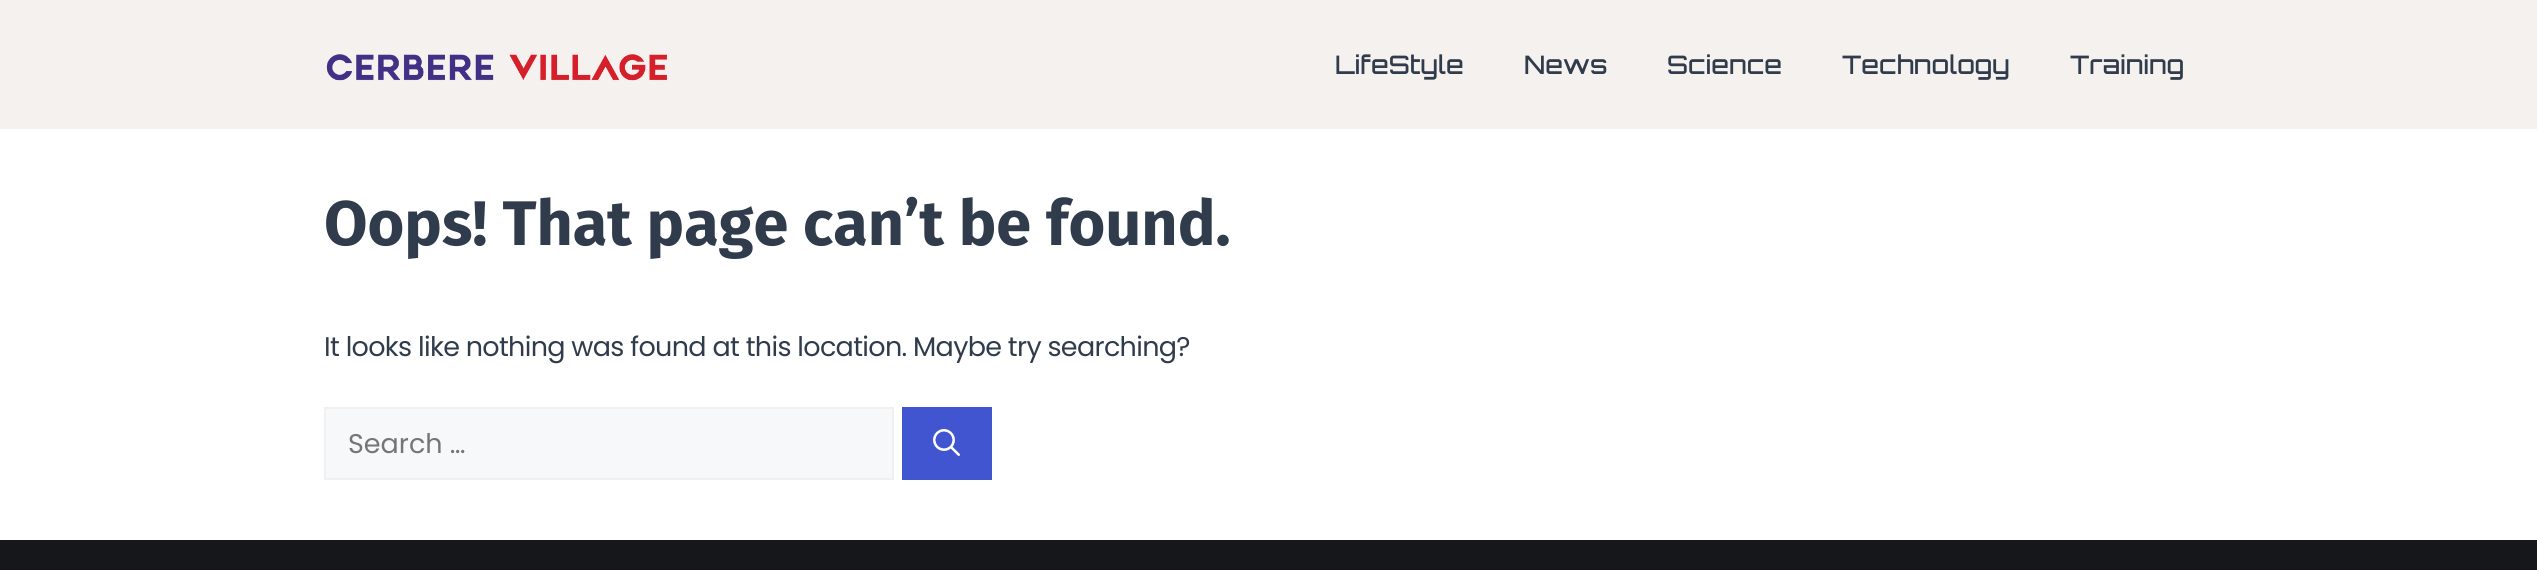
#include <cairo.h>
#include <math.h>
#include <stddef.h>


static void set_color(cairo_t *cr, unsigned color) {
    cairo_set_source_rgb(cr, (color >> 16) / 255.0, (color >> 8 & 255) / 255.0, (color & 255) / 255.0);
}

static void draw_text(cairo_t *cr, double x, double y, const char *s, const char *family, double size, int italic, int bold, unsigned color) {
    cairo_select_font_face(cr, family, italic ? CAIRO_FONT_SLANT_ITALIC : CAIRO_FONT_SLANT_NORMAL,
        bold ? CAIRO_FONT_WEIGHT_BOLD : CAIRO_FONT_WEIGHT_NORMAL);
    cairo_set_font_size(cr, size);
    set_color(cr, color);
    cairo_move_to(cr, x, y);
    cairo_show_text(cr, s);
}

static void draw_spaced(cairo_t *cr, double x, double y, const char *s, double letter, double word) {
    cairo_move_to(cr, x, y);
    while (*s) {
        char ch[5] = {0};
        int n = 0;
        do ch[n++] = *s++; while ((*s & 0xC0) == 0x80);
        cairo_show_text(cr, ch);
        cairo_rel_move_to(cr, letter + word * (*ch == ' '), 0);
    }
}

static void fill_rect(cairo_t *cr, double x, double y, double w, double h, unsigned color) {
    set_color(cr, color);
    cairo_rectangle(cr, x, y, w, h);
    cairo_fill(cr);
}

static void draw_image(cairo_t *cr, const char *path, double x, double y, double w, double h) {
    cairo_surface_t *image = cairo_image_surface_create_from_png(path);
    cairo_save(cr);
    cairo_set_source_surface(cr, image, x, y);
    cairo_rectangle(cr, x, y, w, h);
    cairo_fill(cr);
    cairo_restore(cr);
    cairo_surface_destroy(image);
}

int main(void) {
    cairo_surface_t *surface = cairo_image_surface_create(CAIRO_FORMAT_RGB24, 2537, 570);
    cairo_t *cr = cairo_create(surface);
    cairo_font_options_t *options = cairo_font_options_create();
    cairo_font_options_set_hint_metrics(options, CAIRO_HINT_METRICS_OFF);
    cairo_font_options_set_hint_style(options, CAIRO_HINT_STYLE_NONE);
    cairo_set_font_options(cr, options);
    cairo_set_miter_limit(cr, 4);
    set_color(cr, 0xFFFFFF);
    cairo_paint(cr);
    fill_rect(cr, 0, 0, 2537, 129, 0xF4F1EE);
    draw_image(cr, "assets/img1.png", 326, 54, 341, 27);
    draw_text(cr, 1335, 74, "LifeStyle", "Orbitron Medium", 25.5, 0, 0, 0x303B4B);
    draw_text(cr, 1524, 74, "News", "Orbitron Medium", 25.5, 0, 0, 0x303B4B);
    draw_text(cr, 1667, 74, "Science", "Orbitron Medium", 25.5, 0, 0, 0x303B4B);
    draw_text(cr, 1842, 74, "Technology", "Orbitron Medium", 25.5, 0, 0, 0x303B4B);
    draw_text(cr, 2070, 74, "Training", "Orbitron Medium", 25.5, 0, 0, 0x303B4B);
    draw_text(cr, 324, 245, "Oops! That page can’t be found.", "Fira Sans", 63, 0, 1, 0x303B4B);
    cairo_select_font_face(cr, "Poppins", CAIRO_FONT_SLANT_NORMAL, CAIRO_FONT_WEIGHT_NORMAL);
    cairo_set_font_size(cr, 27);
    draw_spaced(cr, 324, 356, "It looks like nothing was found at this location. Maybe try searching?", -0.68, 0);
    set_color(cr, 0xF7F8F9);
    cairo_rectangle(cr, 325, 408, 568, 71);
    cairo_fill_preserve(cr);
    set_color(cr, 0xF0F0F0);
    cairo_stroke(cr);
    draw_text(cr, 348, 453, "Search …", "Poppins", 27, 0, 0, 0x757575);
    fill_rect(cr, 902, 407, 90, 73, 0x4055CF);
    draw_image(cr, "assets/img2.png", 933, 429, 27, 27);
    fill_rect(cr, 0, 540, 2537, 30, 0x16171B);
    cairo_surface_write_to_png(surface, "output.png");
    cairo_font_options_destroy(options);
    cairo_destroy(cr);
    cairo_surface_destroy(surface);
    return 0;
}
